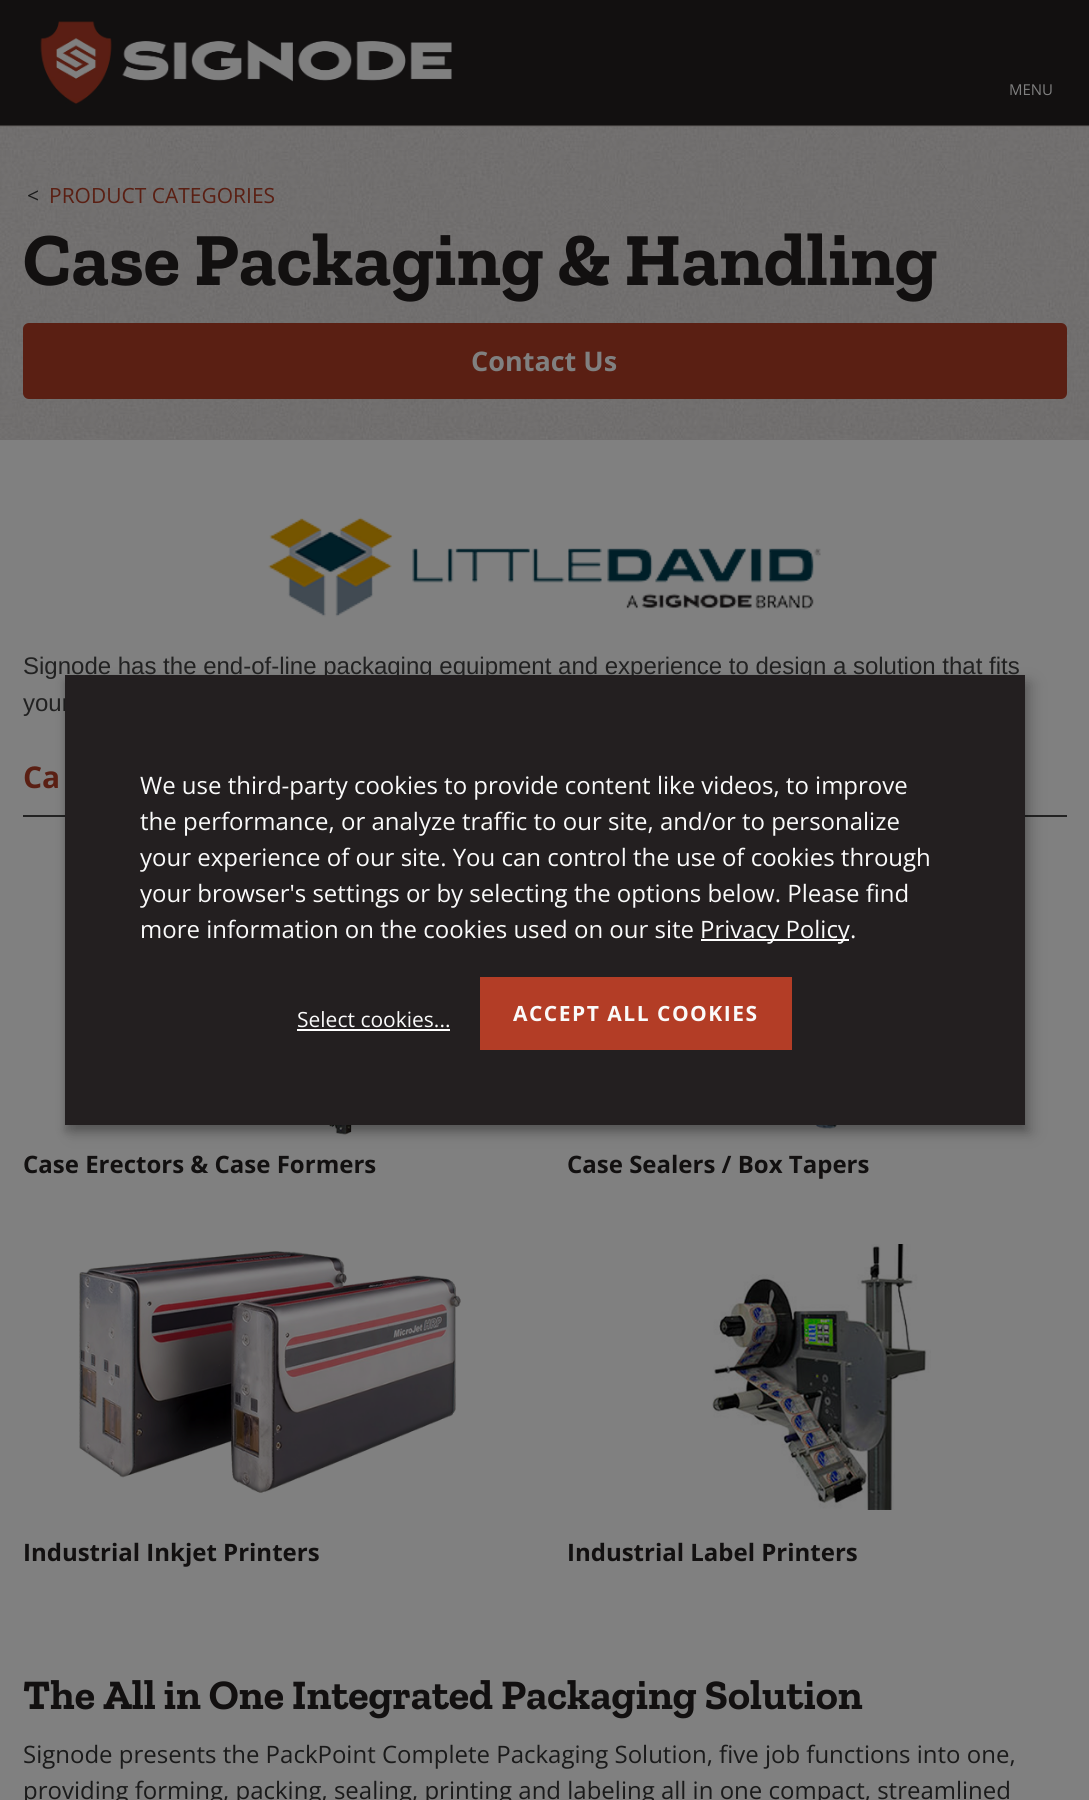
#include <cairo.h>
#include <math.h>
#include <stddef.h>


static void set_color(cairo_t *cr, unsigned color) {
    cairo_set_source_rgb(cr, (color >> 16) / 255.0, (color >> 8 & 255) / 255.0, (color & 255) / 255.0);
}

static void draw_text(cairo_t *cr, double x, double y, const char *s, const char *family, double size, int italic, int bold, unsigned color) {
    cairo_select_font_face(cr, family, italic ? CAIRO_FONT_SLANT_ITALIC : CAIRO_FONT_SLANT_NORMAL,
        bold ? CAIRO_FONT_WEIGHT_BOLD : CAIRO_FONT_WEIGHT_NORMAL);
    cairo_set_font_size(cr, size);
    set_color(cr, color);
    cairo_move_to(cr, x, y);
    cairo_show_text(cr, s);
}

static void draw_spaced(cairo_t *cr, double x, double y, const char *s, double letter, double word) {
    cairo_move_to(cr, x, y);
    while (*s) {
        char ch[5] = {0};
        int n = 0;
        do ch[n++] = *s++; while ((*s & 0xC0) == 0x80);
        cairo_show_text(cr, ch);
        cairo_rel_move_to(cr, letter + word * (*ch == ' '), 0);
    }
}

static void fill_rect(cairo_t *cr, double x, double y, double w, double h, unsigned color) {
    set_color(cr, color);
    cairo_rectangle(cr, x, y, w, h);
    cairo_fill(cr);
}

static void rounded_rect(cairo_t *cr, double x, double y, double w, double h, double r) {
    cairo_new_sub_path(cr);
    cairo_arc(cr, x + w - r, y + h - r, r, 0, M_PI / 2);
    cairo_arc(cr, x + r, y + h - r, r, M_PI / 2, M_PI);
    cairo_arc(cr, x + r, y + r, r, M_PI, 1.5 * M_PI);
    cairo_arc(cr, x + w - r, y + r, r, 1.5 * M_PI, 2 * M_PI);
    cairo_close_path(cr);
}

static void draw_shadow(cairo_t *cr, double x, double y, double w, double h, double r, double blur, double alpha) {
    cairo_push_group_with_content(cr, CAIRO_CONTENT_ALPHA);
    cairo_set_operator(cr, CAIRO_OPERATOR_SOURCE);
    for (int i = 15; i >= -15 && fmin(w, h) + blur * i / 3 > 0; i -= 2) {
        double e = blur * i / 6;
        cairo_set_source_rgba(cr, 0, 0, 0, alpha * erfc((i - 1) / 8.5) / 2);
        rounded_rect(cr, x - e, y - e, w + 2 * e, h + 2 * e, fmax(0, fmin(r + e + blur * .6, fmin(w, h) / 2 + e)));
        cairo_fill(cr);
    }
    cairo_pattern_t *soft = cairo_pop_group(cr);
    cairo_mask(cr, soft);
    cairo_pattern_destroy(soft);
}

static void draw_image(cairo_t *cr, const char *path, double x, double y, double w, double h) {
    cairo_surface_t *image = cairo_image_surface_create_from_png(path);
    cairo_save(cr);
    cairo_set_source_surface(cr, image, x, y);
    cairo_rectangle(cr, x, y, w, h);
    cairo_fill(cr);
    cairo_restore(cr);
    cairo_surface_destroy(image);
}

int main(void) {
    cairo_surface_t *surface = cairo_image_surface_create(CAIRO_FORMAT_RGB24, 1089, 1800);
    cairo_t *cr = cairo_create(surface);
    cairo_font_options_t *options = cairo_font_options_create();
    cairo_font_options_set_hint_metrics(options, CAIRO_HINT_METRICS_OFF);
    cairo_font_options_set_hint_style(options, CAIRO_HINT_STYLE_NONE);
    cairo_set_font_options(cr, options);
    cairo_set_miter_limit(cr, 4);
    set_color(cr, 0x808080);
    cairo_paint(cr);
    fill_rect(cr, 0, 0, 1089, 126, 0x121010);
    fill_rect(cr, 0, 439, 1089, 1, 0x716F6E);
    draw_image(cr, "assets/img2.png", 0, 126, 1089, 314);
    cairo_set_source_rgba(cr, 0.384, 0.369, 0.361, 0.5);
    cairo_rectangle(cr, 0, 125, 1089, 2);
    cairo_fill(cr);
    draw_image(cr, "assets/img1.png", 40, 21, 412, 83);
    draw_text(cr, 1009, 95, "MENU", "Open Sans", 15, 0, 0, 0x808080);
    draw_text(cr, 27, 203, "<", "Open Sans", 21, 0, 0, 0x1A1A1A);
    draw_text(cr, 49, 203, "PRODUCT CATEGORIES", "Open Sans", 21, 0, 0, 0x5A1F13);
    draw_text(cr, 23, 285, "Case Packaging & Handling", "Zilla Slab", 75, 0, 1, 0x121010);
    set_color(cr, 0x5A1F13);
    rounded_rect(cr, 23, 323, 1044, 76, 6);
    cairo_fill(cr);
    draw_text(cr, 471, 371, "Contact Us", "Open Sans", 27, 0, 1, 0x808080);
    draw_image(cr, "assets/img3.png", 268, 517, 553, 100);
    draw_text(cr, 23, 674, "Signode has the end-of-line packaging equipment and experience to design a solution that fits", "Liberation Sans", 24, 0, 0, 0x212121);
    draw_text(cr, 23, 711, "your", "Liberation Sans", 24, 0, 0, 0x212121);
    fill_rect(cr, 23, 815, 1044, 2, 0x222222);
    draw_text(cr, 23, 788, "Ca", "Open Sans", 30, 0, 1, 0x5A1F13);
    draw_image(cr, "assets/img4.png", 329, 1125, 23, 10);
    draw_text(cr, 23, 1173, "Case Erectors & Case Formers", "Open Sans", 24, 0, 1, 0x121010);
    draw_image(cr, "assets/img5.png", 816, 1125, 21, 4);
    draw_text(cr, 567, 1173, "Case Sealers / Box Tapers", "Open Sans", 24, 0, 1, 0x121010);
    draw_image(cr, "assets/img6.png", 79, 1251, 382, 242);
    draw_text(cr, 23, 1561, "Industrial Inkjet Printers", "Open Sans", 24, 0, 1, 0x121010);
    draw_image(cr, "assets/img7.png", 712, 1244, 219, 266);
    draw_text(cr, 567, 1561, "Industrial Label Printers", "Open Sans", 24, 0, 1, 0x121010);
    draw_text(cr, 23, 1709, "The All in One Integrated Packaging Solution", "Zilla Slab", 42, 0, 1, 0x121010);
    draw_text(cr, 23, 1763, "Signode presents the PackPoint Complete Packaging Solution, five job functions into one,", "Open Sans", 24, 0, 0, 0x1A1A1A);
    draw_text(cr, 23, 1799, "providing forming, packing, sealing, printing and labeling all in one compact, streamlined", "Open Sans", 24, 0, 0, 0x1A1A1A);
    set_color(cr, 0x000000);
    draw_shadow(cr, 72, 683, 960, 450, 0, 7.5, 0.19);
    draw_shadow(cr, 65, 681, 960, 450, 0, 4.5, 0.2);
    fill_rect(cr, 65, 675, 960, 450, 0x231F20);
    draw_text(cr, 140, 794, "We use third-party cookies to provide content like videos, to improve", "Open Sans", 24, 0, 0, 0xFAFAFA);
    draw_text(cr, 140, 830, "the performance, or analyze traffic to our site, and/or to personalize", "Open Sans", 24, 0, 0, 0xFAFAFA);
    draw_text(cr, 140, 866, "your experience of our site. You can control the use of cookies through", "Open Sans", 24, 0, 0, 0xFAFAFA);
    draw_text(cr, 140, 902, "your browser's settings or by selecting the options below. Please find", "Open Sans", 24, 0, 0, 0xFAFAFA);
    draw_text(cr, 140, 938, "more information on the cookies used on our site", "Open Sans", 24, 0, 0, 0xFAFAFA);
    fill_rect(cr, 701, 939, 148, 2, 0xFFFFFF);
    draw_text(cr, 700, 938, "Privacy Policy", "Open Sans", 24, 0, 0, 0xFAFAFA);
    draw_text(cr, 850, 938, ".", "Open Sans", 24, 0, 0, 0xFAFAFA);
    draw_text(cr, 297, 1027, "Select cookies...", "Open Sans", 21, 0, 0, 0xFAFAFA);
    fill_rect(cr, 297, 1029, 153, 2, 0xFFFFFF);
    fill_rect(cr, 480, 977, 312, 73, 0xB33D26);
    cairo_select_font_face(cr, "Open Sans", CAIRO_FONT_SLANT_NORMAL, CAIRO_FONT_WEIGHT_BOLD);
    set_color(cr, 0xFAFAFA);
    draw_spaced(cr, 513, 1021, "ACCEPT ALL COOKIES", 1.5, 0);
    cairo_surface_write_to_png(surface, "output.png");
    cairo_font_options_destroy(options);
    cairo_destroy(cr);
    cairo_surface_destroy(surface);
    return 0;
}
